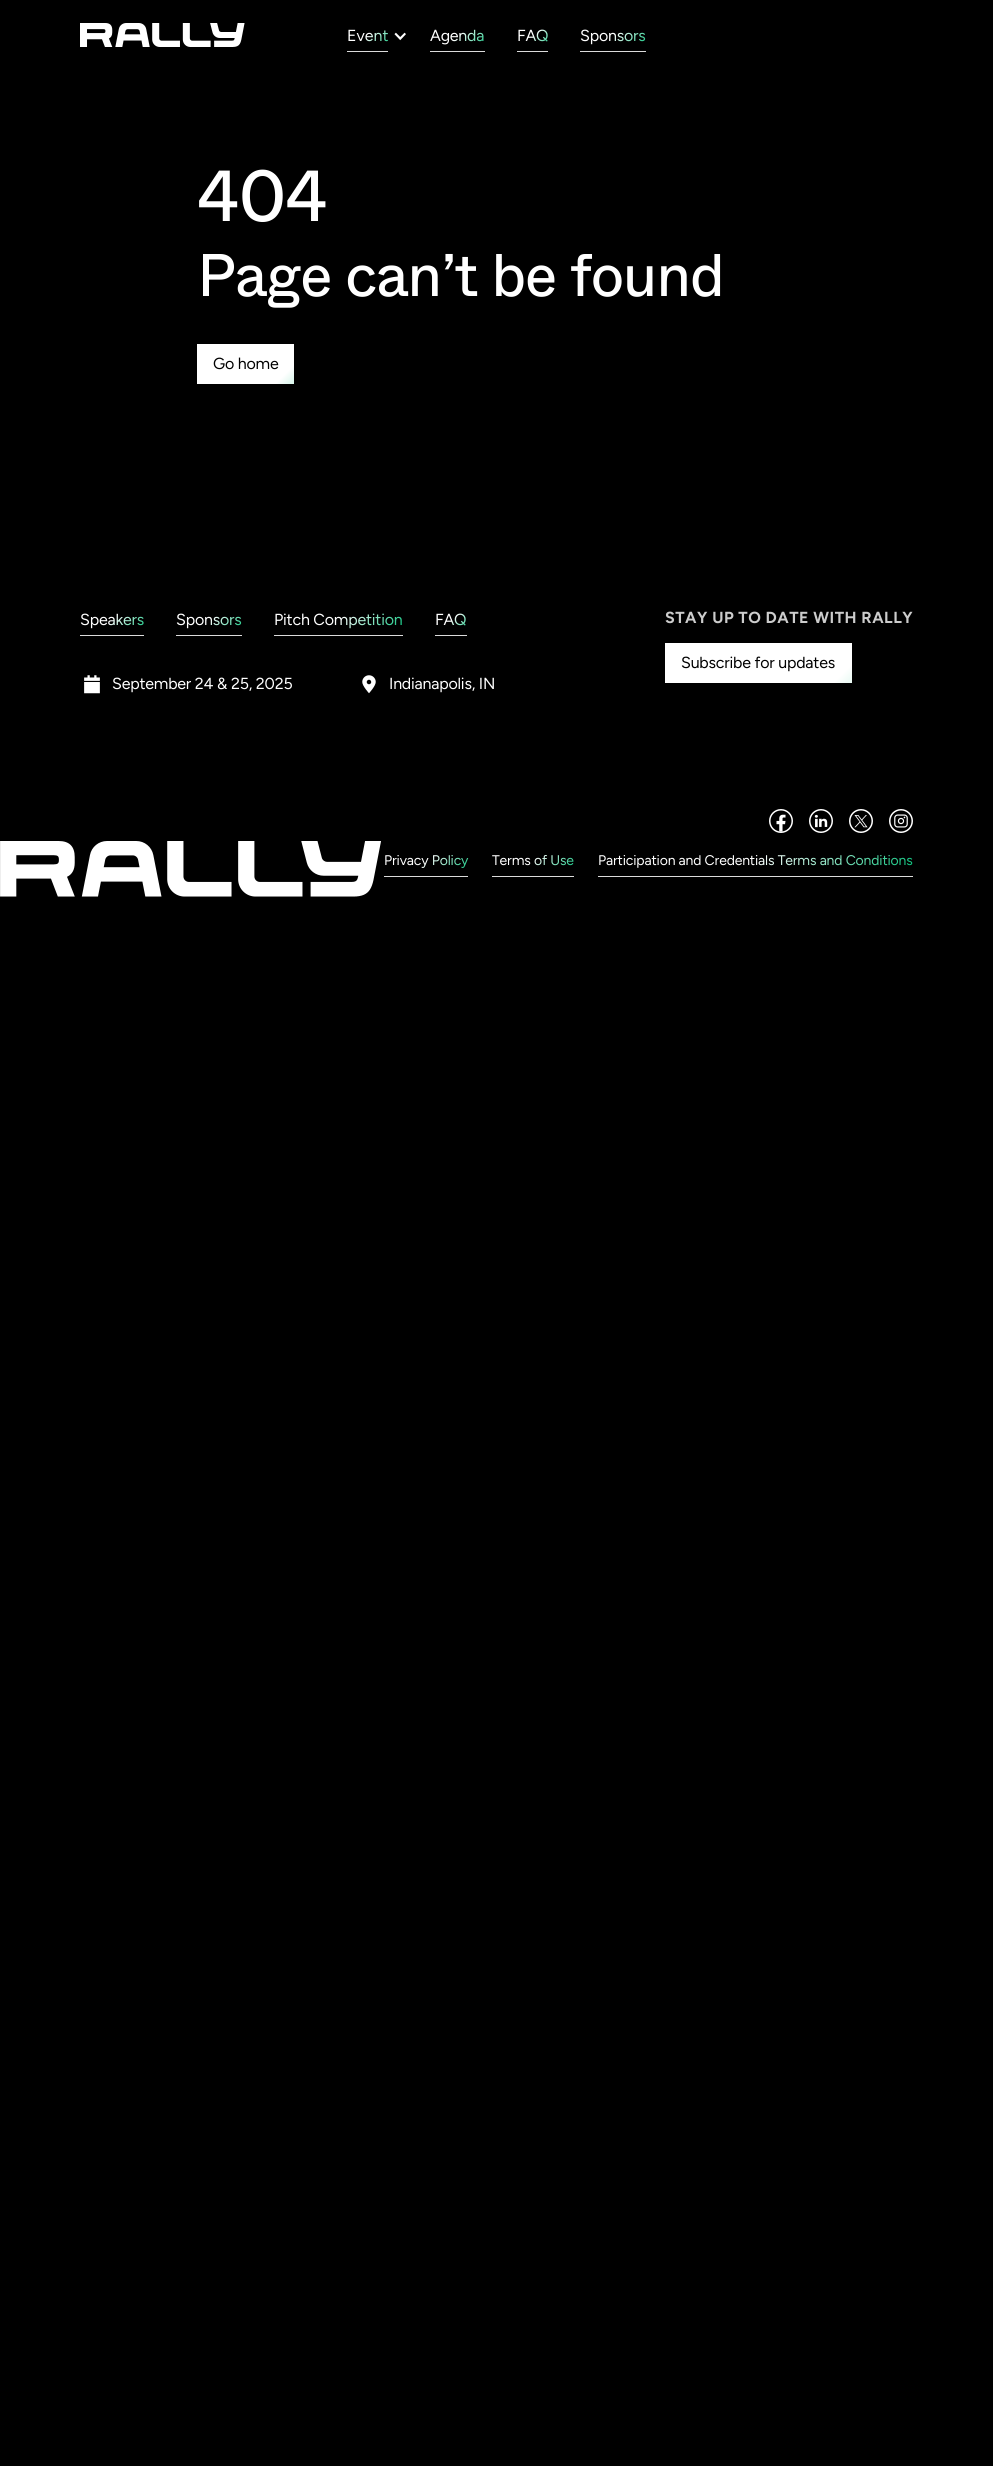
#include <cairo.h>
#include <math.h>
#include <stddef.h>


static void set_color(cairo_t *cr, unsigned color) {
    cairo_set_source_rgb(cr, (color >> 16) / 255.0, (color >> 8 & 255) / 255.0, (color & 255) / 255.0);
}

static void draw_spaced(cairo_t *cr, double x, double y, const char *s, double letter, double word) {
    cairo_move_to(cr, x, y);
    while (*s) {
        char ch[5] = {0};
        int n = 0;
        do ch[n++] = *s++; while ((*s & 0xC0) == 0x80);
        cairo_show_text(cr, ch);
        cairo_rel_move_to(cr, letter + word * (*ch == ' '), 0);
    }
}

static void fill_rect(cairo_t *cr, double x, double y, double w, double h, unsigned color) {
    set_color(cr, color);
    cairo_rectangle(cr, x, y, w, h);
    cairo_fill(cr);
}

static void draw_image(cairo_t *cr, const char *path, double x, double y, double w, double h) {
    cairo_surface_t *image = cairo_image_surface_create_from_png(path);
    cairo_save(cr);
    cairo_set_source_surface(cr, image, x, y);
    cairo_rectangle(cr, x, y, w, h);
    cairo_fill(cr);
    cairo_restore(cr);
    cairo_surface_destroy(image);
}

int main(void) {
    cairo_surface_t *surface = cairo_image_surface_create(CAIRO_FORMAT_RGB24, 993, 2466);
    cairo_t *cr = cairo_create(surface);
    cairo_font_options_t *options = cairo_font_options_create();
    cairo_font_options_set_hint_metrics(options, CAIRO_HINT_METRICS_OFF);
    cairo_font_options_set_hint_style(options, CAIRO_HINT_STYLE_NONE);
    cairo_set_font_options(cr, options);
    cairo_set_miter_limit(cr, 4);
    cairo_pattern_t *gradient;
    set_color(cr, 0x000000);
    cairo_paint(cr);
    draw_image(cr, "assets/img1.png", 80, 23, 165, 24);
    cairo_select_font_face(cr, "Figtree", CAIRO_FONT_SLANT_NORMAL, CAIRO_FONT_WEIGHT_NORMAL);
    cairo_set_font_size(cr, 16);
    gradient = cairo_pattern_create_linear(351, 20, 384, 52);
    cairo_pattern_add_color_stop_rgba(gradient, 0.5, 1, 1, 1, 1);
    cairo_pattern_add_color_stop_rgba(gradient, 1, 0, 0.761, 0.475, 1);
    cairo_set_source(cr, gradient);
    cairo_pattern_destroy(gradient);
    cairo_move_to(cr, 347, 41);
    cairo_show_text(cr, "Event");
    fill_rect(cr, 347, 51, 41, 1, 0xDBDBDB);
    draw_image(cr, "assets/img2.png", 394, 32, 12, 9);
    gradient = cairo_pattern_create_linear(438, 16, 477, 56);
    cairo_pattern_add_color_stop_rgba(gradient, 0.5, 1, 1, 1, 1);
    cairo_pattern_add_color_stop_rgba(gradient, 1, 0, 0.761, 0.475, 1);
    cairo_set_source(cr, gradient);
    cairo_pattern_destroy(gradient);
    draw_spaced(cr, 430, 41, "Agenda", -0.2, 0);
    fill_rect(cr, 430, 51, 55, 1, 0xDBDBDB);
    gradient = cairo_pattern_create_linear(519, 22, 546, 50);
    cairo_pattern_add_color_stop_rgba(gradient, 0.5, 1, 1, 1, 1);
    cairo_pattern_add_color_stop_rgba(gradient, 1, 0, 0.761, 0.475, 1);
    cairo_set_source(cr, gradient);
    cairo_pattern_destroy(gradient);
    draw_spaced(cr, 517, 41, "FAQ", -0.2, 0);
    fill_rect(cr, 517, 51, 31, 1, 0xDBDBDB);
    gradient = cairo_pattern_create_linear(591, 14, 636, 58);
    cairo_pattern_add_color_stop_rgba(gradient, 0.5, 1, 1, 1, 1);
    cairo_pattern_add_color_stop_rgba(gradient, 1, 0, 0.761, 0.475, 1);
    cairo_set_source(cr, gradient);
    cairo_pattern_destroy(gradient);
    draw_spaced(cr, 580, 41, "Sponsors", -0.2, 0);
    fill_rect(cr, 580, 51, 66, 1, 0xDBDBDB);
    cairo_select_font_face(cr, "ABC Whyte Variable", CAIRO_FONT_SLANT_NORMAL, CAIRO_FONT_WEIGHT_NORMAL);
    cairo_set_font_size(cr, 72);
    set_color(cr, 0xFFFFFF);
    draw_spaced(cr, 197, 221, "404", -1.5, 0);
    cairo_set_font_size(cr, 60);
    draw_spaced(cr, 197, 296, "Page can’t be found", -1.25, 0);
    gradient = cairo_pattern_create_linear(236, 306, 353, 423);
    cairo_pattern_add_color_stop_rgba(gradient, 0.5, 1, 1, 1, 1);
    cairo_pattern_add_color_stop_rgba(gradient, 1, 0, 0.761, 0.475, 1);
    cairo_set_source(cr, gradient);
    cairo_pattern_destroy(gradient);
    cairo_rectangle(cr, 197, 344, 97, 40);
    cairo_fill(cr);
    cairo_select_font_face(cr, "Figtree", CAIRO_FONT_SLANT_NORMAL, CAIRO_FONT_WEIGHT_NORMAL);
    cairo_set_font_size(cr, 16);
    set_color(cr, 0x000000);
    draw_spaced(cr, 213, 369, "Go home", -0.2, 0);
    gradient = cairo_pattern_create_linear(90, 598, 134, 642);
    cairo_pattern_add_color_stop_rgba(gradient, 0.5, 1, 1, 1, 1);
    cairo_pattern_add_color_stop_rgba(gradient, 1, 0, 0.761, 0.475, 1);
    cairo_set_source(cr, gradient);
    cairo_pattern_destroy(gradient);
    draw_spaced(cr, 80, 625, "Speakers", -0.2, 0);
    fill_rect(cr, 80, 635, 64, 1, 0xDBDBDB);
    gradient = cairo_pattern_create_linear(187, 598, 232, 642);
    cairo_pattern_add_color_stop_rgba(gradient, 0.5, 1, 1, 1, 1);
    cairo_pattern_add_color_stop_rgba(gradient, 1, 0, 0.761, 0.475, 1);
    cairo_set_source(cr, gradient);
    cairo_pattern_destroy(gradient);
    draw_spaced(cr, 176, 625, "Sponsors", -0.2, 0);
    fill_rect(cr, 176, 635, 66, 1, 0xDBDBDB);
    gradient = cairo_pattern_create_linear(300, 582, 377, 658);
    cairo_pattern_add_color_stop_rgba(gradient, 0.5, 1, 1, 1, 1);
    cairo_pattern_add_color_stop_rgba(gradient, 1, 0, 0.761, 0.475, 1);
    cairo_set_source(cr, gradient);
    cairo_pattern_destroy(gradient);
    draw_spaced(cr, 274, 625, "Pitch Competition", -0.2, 0);
    fill_rect(cr, 274, 635, 129, 1, 0xDBDBDB);
    gradient = cairo_pattern_create_linear(437, 606, 465, 634);
    cairo_pattern_add_color_stop_rgba(gradient, 0.5, 1, 1, 1, 1);
    cairo_pattern_add_color_stop_rgba(gradient, 1, 0, 0.761, 0.475, 1);
    cairo_set_source(cr, gradient);
    cairo_pattern_destroy(gradient);
    draw_spaced(cr, 435, 625, "FAQ", -0.2, 0);
    fill_rect(cr, 435, 635, 32, 1, 0xDBDBDB);
    draw_image(cr, "assets/img3.png", 84, 675, 16, 19);
    set_color(cr, 0xFFFFFF);
    draw_spaced(cr, 112, 689, "September 24 & 25, 2025", -0.2, 0);
    draw_image(cr, "assets/img4.png", 362, 675, 14, 19);
    draw_spaced(cr, 389, 689, "Indianapolis, IN", -0.2, 0);
    cairo_select_font_face(cr, "Figtree", CAIRO_FONT_SLANT_NORMAL, CAIRO_FONT_WEIGHT_BOLD);
    set_color(cr, 0xCCCCCC);
    draw_spaced(cr, 665, 623, "STAY UP TO DATE WITH RALLY", 0.5, 0);
    gradient = cairo_pattern_create_linear(749, 560, 956, 767);
    cairo_pattern_add_color_stop_rgba(gradient, 0.5, 1, 1, 1, 1);
    cairo_pattern_add_color_stop_rgba(gradient, 1, 0, 0.761, 0.475, 1);
    cairo_set_source(cr, gradient);
    cairo_pattern_destroy(gradient);
    cairo_rectangle(cr, 665, 643, 187, 40);
    cairo_fill(cr);
    cairo_select_font_face(cr, "Figtree", CAIRO_FONT_SLANT_NORMAL, CAIRO_FONT_WEIGHT_NORMAL);
    set_color(cr, 0x000000);
    draw_spaced(cr, 681, 668, "Subscribe for updates", -0.2, 0);
    draw_image(cr, "assets/img5.png", 0, 841, 381, 56);
    draw_image(cr, "assets/img6.png", 769, 809, 24, 24);
    draw_image(cr, "assets/img7.png", 809, 809, 24, 24);
    draw_image(cr, "assets/img8.png", 849, 809, 24, 24);
    draw_image(cr, "assets/img9.png", 889, 809, 24, 24);
    cairo_set_font_size(cr, 14);
    gradient = cairo_pattern_create_linear(399, 834, 453, 888);
    cairo_pattern_add_color_stop_rgba(gradient, 0.5, 1, 1, 1, 1);
    cairo_pattern_add_color_stop_rgba(gradient, 1, 0, 0.761, 0.475, 1);
    cairo_set_source(cr, gradient);
    cairo_pattern_destroy(gradient);
    draw_spaced(cr, 384, 865, "Privacy Policy", -0.15, 0);
    fill_rect(cr, 384, 876, 84, 1, 0xDBDBDB);
    gradient = cairo_pattern_create_linear(506, 834, 559, 887);
    cairo_pattern_add_color_stop_rgba(gradient, 0.5, 1, 1, 1, 1);
    cairo_pattern_add_color_stop_rgba(gradient, 1, 0, 0.761, 0.475, 1);
    cairo_set_source(cr, gradient);
    cairo_pattern_destroy(gradient);
    draw_spaced(cr, 492, 865, "Terms of Use", -0.15, 0);
    fill_rect(cr, 492, 876, 82, 1, 0xDBDBDB);
    gradient = cairo_pattern_create_linear(671, 776, 840, 946);
    cairo_pattern_add_color_stop_rgba(gradient, 0.5, 1, 1, 1, 1);
    cairo_pattern_add_color_stop_rgba(gradient, 1, 0, 0.761, 0.475, 1);
    cairo_set_source(cr, gradient);
    cairo_pattern_destroy(gradient);
    draw_spaced(cr, 598, 865, "Participation and Credentials Terms and Conditions", -0.15, 0);
    fill_rect(cr, 598, 876, 315, 1, 0xDBDBDB);
    cairo_surface_write_to_png(surface, "output.png");
    cairo_font_options_destroy(options);
    cairo_destroy(cr);
    cairo_surface_destroy(surface);
    return 0;
}
